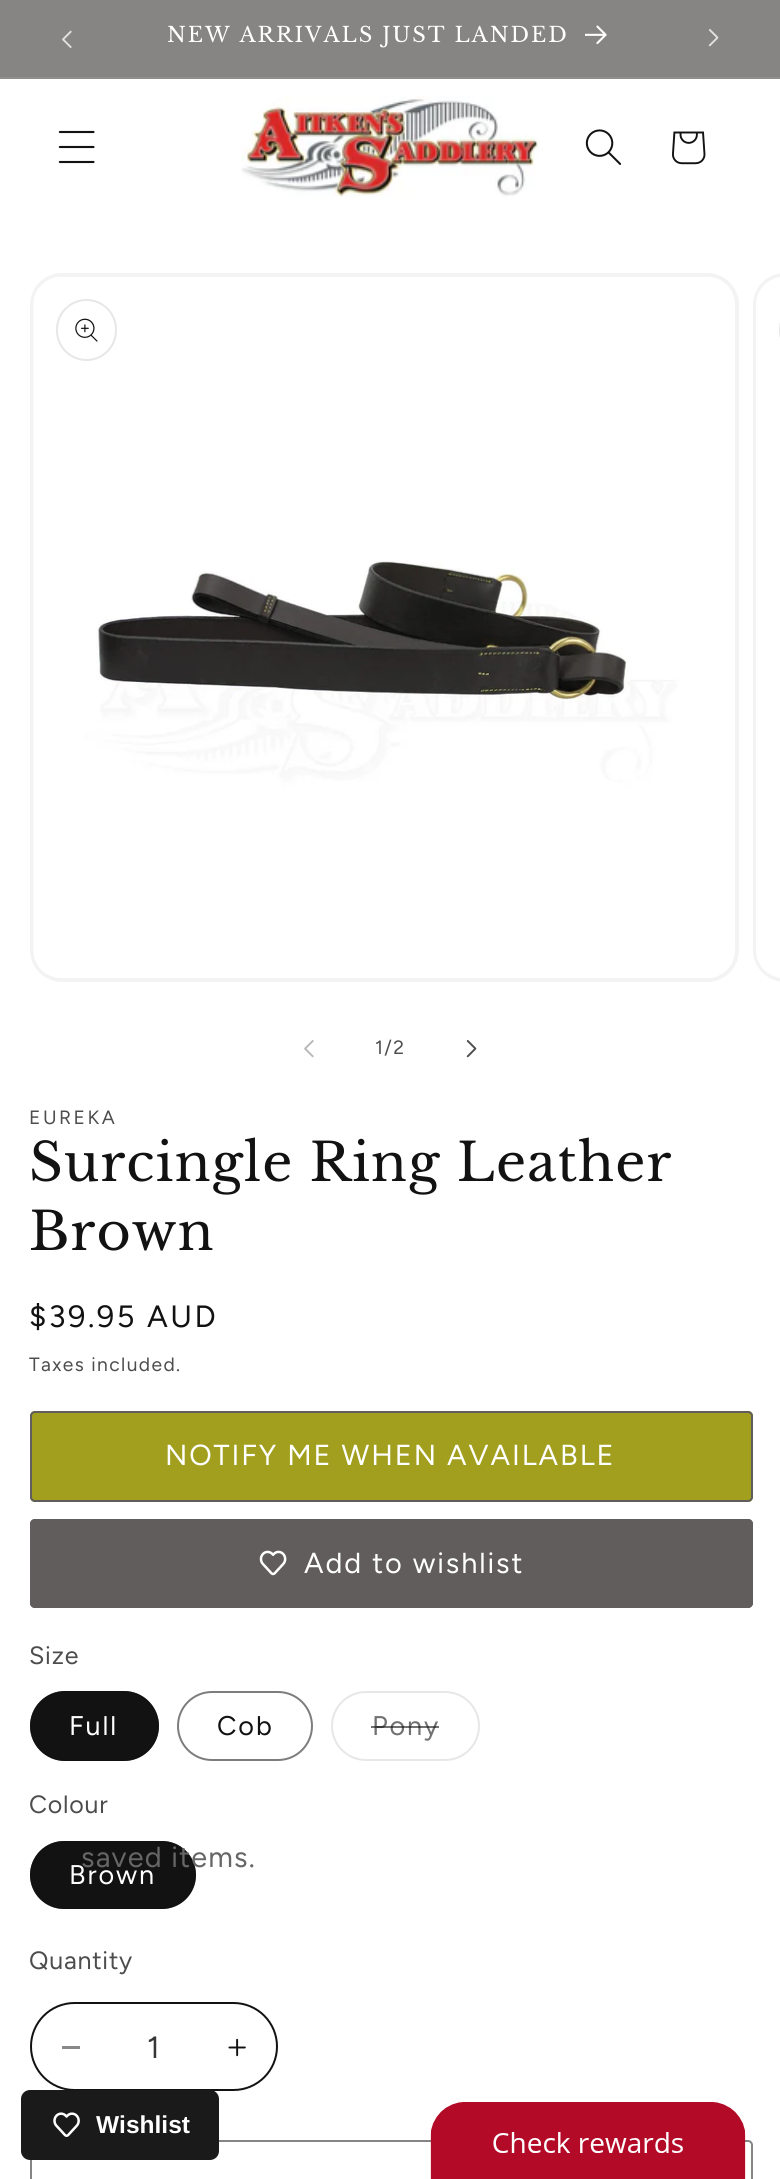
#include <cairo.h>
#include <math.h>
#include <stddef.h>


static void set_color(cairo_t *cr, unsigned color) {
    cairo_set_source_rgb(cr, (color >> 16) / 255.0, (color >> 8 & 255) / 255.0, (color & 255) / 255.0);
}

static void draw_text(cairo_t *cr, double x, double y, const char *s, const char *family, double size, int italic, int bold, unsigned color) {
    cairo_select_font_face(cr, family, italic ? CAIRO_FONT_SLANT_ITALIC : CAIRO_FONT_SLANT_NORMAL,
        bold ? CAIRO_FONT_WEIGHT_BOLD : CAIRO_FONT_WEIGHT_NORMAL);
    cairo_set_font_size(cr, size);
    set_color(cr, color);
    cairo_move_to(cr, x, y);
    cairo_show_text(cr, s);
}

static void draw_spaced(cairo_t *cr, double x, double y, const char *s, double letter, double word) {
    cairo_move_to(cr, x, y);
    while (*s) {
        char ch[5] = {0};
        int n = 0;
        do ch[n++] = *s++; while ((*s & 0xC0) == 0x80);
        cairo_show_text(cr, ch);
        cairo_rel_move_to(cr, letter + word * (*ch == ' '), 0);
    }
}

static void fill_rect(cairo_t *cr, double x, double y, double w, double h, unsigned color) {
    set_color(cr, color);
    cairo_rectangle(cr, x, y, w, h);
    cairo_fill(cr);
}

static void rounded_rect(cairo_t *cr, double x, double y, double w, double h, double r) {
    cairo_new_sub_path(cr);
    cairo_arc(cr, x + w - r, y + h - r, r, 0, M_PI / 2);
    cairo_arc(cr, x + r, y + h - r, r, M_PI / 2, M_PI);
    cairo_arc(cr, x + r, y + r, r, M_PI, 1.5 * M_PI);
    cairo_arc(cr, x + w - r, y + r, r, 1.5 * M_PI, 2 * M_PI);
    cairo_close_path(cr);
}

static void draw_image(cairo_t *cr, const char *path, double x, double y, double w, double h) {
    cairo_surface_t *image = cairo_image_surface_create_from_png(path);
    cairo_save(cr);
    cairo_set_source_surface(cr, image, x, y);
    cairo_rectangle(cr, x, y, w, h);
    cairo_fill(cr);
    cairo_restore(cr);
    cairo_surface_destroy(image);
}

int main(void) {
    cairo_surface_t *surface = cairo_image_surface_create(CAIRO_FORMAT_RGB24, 780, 2179);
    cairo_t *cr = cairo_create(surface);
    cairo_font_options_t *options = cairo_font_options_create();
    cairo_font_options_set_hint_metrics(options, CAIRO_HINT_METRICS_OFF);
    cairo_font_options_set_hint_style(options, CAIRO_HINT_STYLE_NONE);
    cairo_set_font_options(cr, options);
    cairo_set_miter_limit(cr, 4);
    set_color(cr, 0xFFFFFF);
    cairo_paint(cr);
    fill_rect(cr, 0, 0, 780, 77, 0x868584);
    fill_rect(cr, 0, 77, 780, 2, 0x908F8E);
    draw_image(cr, "assets/img1.png", 62, 30, 10, 18);
    cairo_select_font_face(cr, "Libre Baskerville", CAIRO_FONT_SLANT_NORMAL, CAIRO_FONT_WEIGHT_NORMAL);
    cairo_set_font_size(cr, 21);
    set_color(cr, 0xFFFFFF);
    draw_spaced(cr, 167, 42, "NEW ARRIVALS JUST LANDED", 1.9, 0);
    draw_image(cr, "assets/img2.png", 585, 25, 22, 20);
    draw_image(cr, "assets/img3.png", 708, 29, 11, 18);
    draw_image(cr, "assets/img4.png", 58, 130, 37, 34);
    draw_image(cr, "assets/img5.png", 241, 96, 298, 102);
    draw_image(cr, "assets/img6.png", 585, 129, 37, 36);
    draw_image(cr, "assets/img7.png", 672, 131, 34, 34);
    rounded_rect(cr, 32, 275, 705, 705, 30);
    set_color(cr, 0xF3F3F3);
    cairo_set_line_width(cr, 4);
    cairo_stroke(cr);
    draw_image(cr, "assets/img8.png", 33, 277, 700, 701);
    rounded_rect(cr, 57, 300, 59, 60, 29.5);
    set_color(cr, 0xE7E7E7);
    cairo_set_line_width(cr, 2);
    cairo_stroke(cr);
    draw_image(cr, "assets/img9.png", 75, 318, 23, 24);
    rounded_rect(cr, 755, 275, 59, 705, 30);
    set_color(cr, 0xF3F3F3);
    cairo_set_line_width(cr, 4);
    cairo_stroke(cr);
    draw_image(cr, "assets/img10.png", 756, 277, 24, 701);
    rounded_rect(cr, 780, 300, 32, 60, 29.5);
    set_color(cr, 0xE7E7E7);
    cairo_set_line_width(cr, 2);
    cairo_stroke(cr);
    draw_image(cr, "assets/img11.png", 304, 1040, 10, 18);
    cairo_select_font_face(cr, "Figtree", CAIRO_FONT_SLANT_NORMAL, CAIRO_FONT_WEIGHT_NORMAL);
    cairo_set_font_size(cr, 19.25);
    set_color(cr, 0x4D4D4D);
    draw_spaced(cr, 375, 1054, "1/2", 1.4, 0);
    draw_image(cr, "assets/img12.png", 466, 1040, 11, 18);
    draw_spaced(cr, 29, 1124, "EUREKA", 2.5, 0);
    cairo_select_font_face(cr, "Libre Baskerville", CAIRO_FONT_SLANT_NORMAL, CAIRO_FONT_WEIGHT_NORMAL);
    cairo_set_font_size(cr, 52.5);
    set_color(cr, 0x121212);
    draw_spaced(cr, 29, 1181, "Surcingle Ring Leather", 1.05, 0);
    draw_spaced(cr, 29, 1250, "Brown", 1.05, 0);
    cairo_select_font_face(cr, "Figtree", CAIRO_FONT_SLANT_NORMAL, CAIRO_FONT_WEIGHT_NORMAL);
    cairo_set_font_size(cr, 30.75);
    draw_spaced(cr, 29, 1327, "$39.95 AUD", 2.5, 0);
    cairo_set_font_size(cr, 19.25);
    set_color(cr, 0x4D4D4D);
    draw_spaced(cr, 29, 1371, "Taxes included.", 1.4, 0);
    set_color(cr, 0xA19F1D);
    rounded_rect(cr, 30, 1411, 723, 91, 5);
    cairo_fill(cr);
    rounded_rect(cr, 31, 1412, 721, 89, 4);
    set_color(cr, 0x605D5C);
    cairo_stroke(cr);
    cairo_set_font_size(cr, 28.9);
    set_color(cr, 0xFFFFFF);
    draw_spaced(cr, 165, 1465, "NOTIFY ME WHEN AVAILABLE", 1.9, 0);
    set_color(cr, 0x605D5C);
    rounded_rect(cr, 30, 1519, 723, 89, 5);
    cairo_fill(cr);
    draw_image(cr, "assets/img13.png", 259, 1550, 28, 26);
    rounded_rect(cr, 31, 1520, 721, 87, 4);
    cairo_stroke(cr);
    set_color(cr, 0xFFFFFF);
    draw_spaced(cr, 304, 1573, "Add to wishlist", 1.9, 0);
    cairo_set_font_size(cr, 25);
    set_color(cr, 0x4D4D4D);
    draw_spaced(cr, 29, 1664, "Size", 0.75, 0);
    set_color(cr, 0x121212);
    rounded_rect(cr, 30, 1691, 129, 70, 35);
    cairo_fill(cr);
    rounded_rect(cr, 31, 1692, 127, 68, 34);
    cairo_set_source_rgba(cr, 0.071, 0.071, 0.071, 0.55);
    cairo_stroke(cr);
    cairo_set_font_size(cr, 27);
    set_color(cr, 0xFFFFFF);
    draw_spaced(cr, 69, 1735, "Full", 1.9, 0);
    rounded_rect(cr, 178, 1692, 134, 68, 34);
    set_color(cr, 0x7D7D7D);
    cairo_stroke(cr);
    set_color(cr, 0x121212);
    draw_spaced(cr, 217, 1735, "Cob", 1.9, 0);
    rounded_rect(cr, 332, 1692, 147, 68, 34);
    set_color(cr, 0xE7E7E7);
    cairo_stroke(cr);
    set_color(cr, 0x717171);
    draw_spaced(cr, 372, 1735, "Pony", 1.9, 0);
    cairo_set_source_rgba(cr, 0.071, 0.071, 0.071, 0.6);
    cairo_rectangle(cr, 371, 1726, 68, 2);
    cairo_fill(cr);
    cairo_set_font_size(cr, 25);
    set_color(cr, 0x4D4D4D);
    draw_spaced(cr, 29, 1813, "Colour", 0.75, 0);
    set_color(cr, 0x121212);
    rounded_rect(cr, 30, 1841, 166, 68, 34);
    cairo_fill(cr);
    rounded_rect(cr, 31, 1842, 164, 66, 33);
    cairo_set_source_rgba(cr, 0.071, 0.071, 0.071, 0.55);
    cairo_stroke(cr);
    cairo_set_font_size(cr, 27);
    set_color(cr, 0xFFFFFF);
    draw_spaced(cr, 69, 1884, "Brown", 1.9, 0);
    cairo_set_font_size(cr, 25);
    set_color(cr, 0x4D4D4D);
    draw_spaced(cr, 29, 1969, "Quantity", 0.75, 0);
    fill_rect(cr, 62, 2046, 18, 3, 0x898989);
    draw_image(cr, "assets/img14.png", 228, 2038, 18, 19);
    rounded_rect(cr, 31, 2003, 246, 87, 43.5);
    set_color(cr, 0x121212);
    cairo_stroke(cr);
    draw_text(cr, 147, 2058, "1", "Figtree", 30.75, 0, 0, 0x363636);
    rounded_rect(cr, 31, 2141, 721, 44, 4);
    set_color(cr, 0x868584);
    cairo_stroke(cr);
    cairo_set_font_size(cr, 28.9);
    set_color(cr, 0x666666);
    draw_spaced(cr, 81, 1867, "saved items.", 1.2, 0);
    set_color(cr, 0x1A1A1A);
    rounded_rect(cr, 21, 2090, 198, 70, 9);
    cairo_fill(cr);
    draw_image(cr, "assets/img15.png", 53, 2112, 27, 25);
    draw_text(cr, 96, 2133, "Wishlist", "Liberation Sans", 24.5, 0, 1, 0xFFFFFF);
    draw_image(cr, "assets/img16.png", 430, 2102, 316, 77);
    cairo_surface_write_to_png(surface, "output.png");
    cairo_font_options_destroy(options);
    cairo_destroy(cr);
    cairo_surface_destroy(surface);
    return 0;
}
